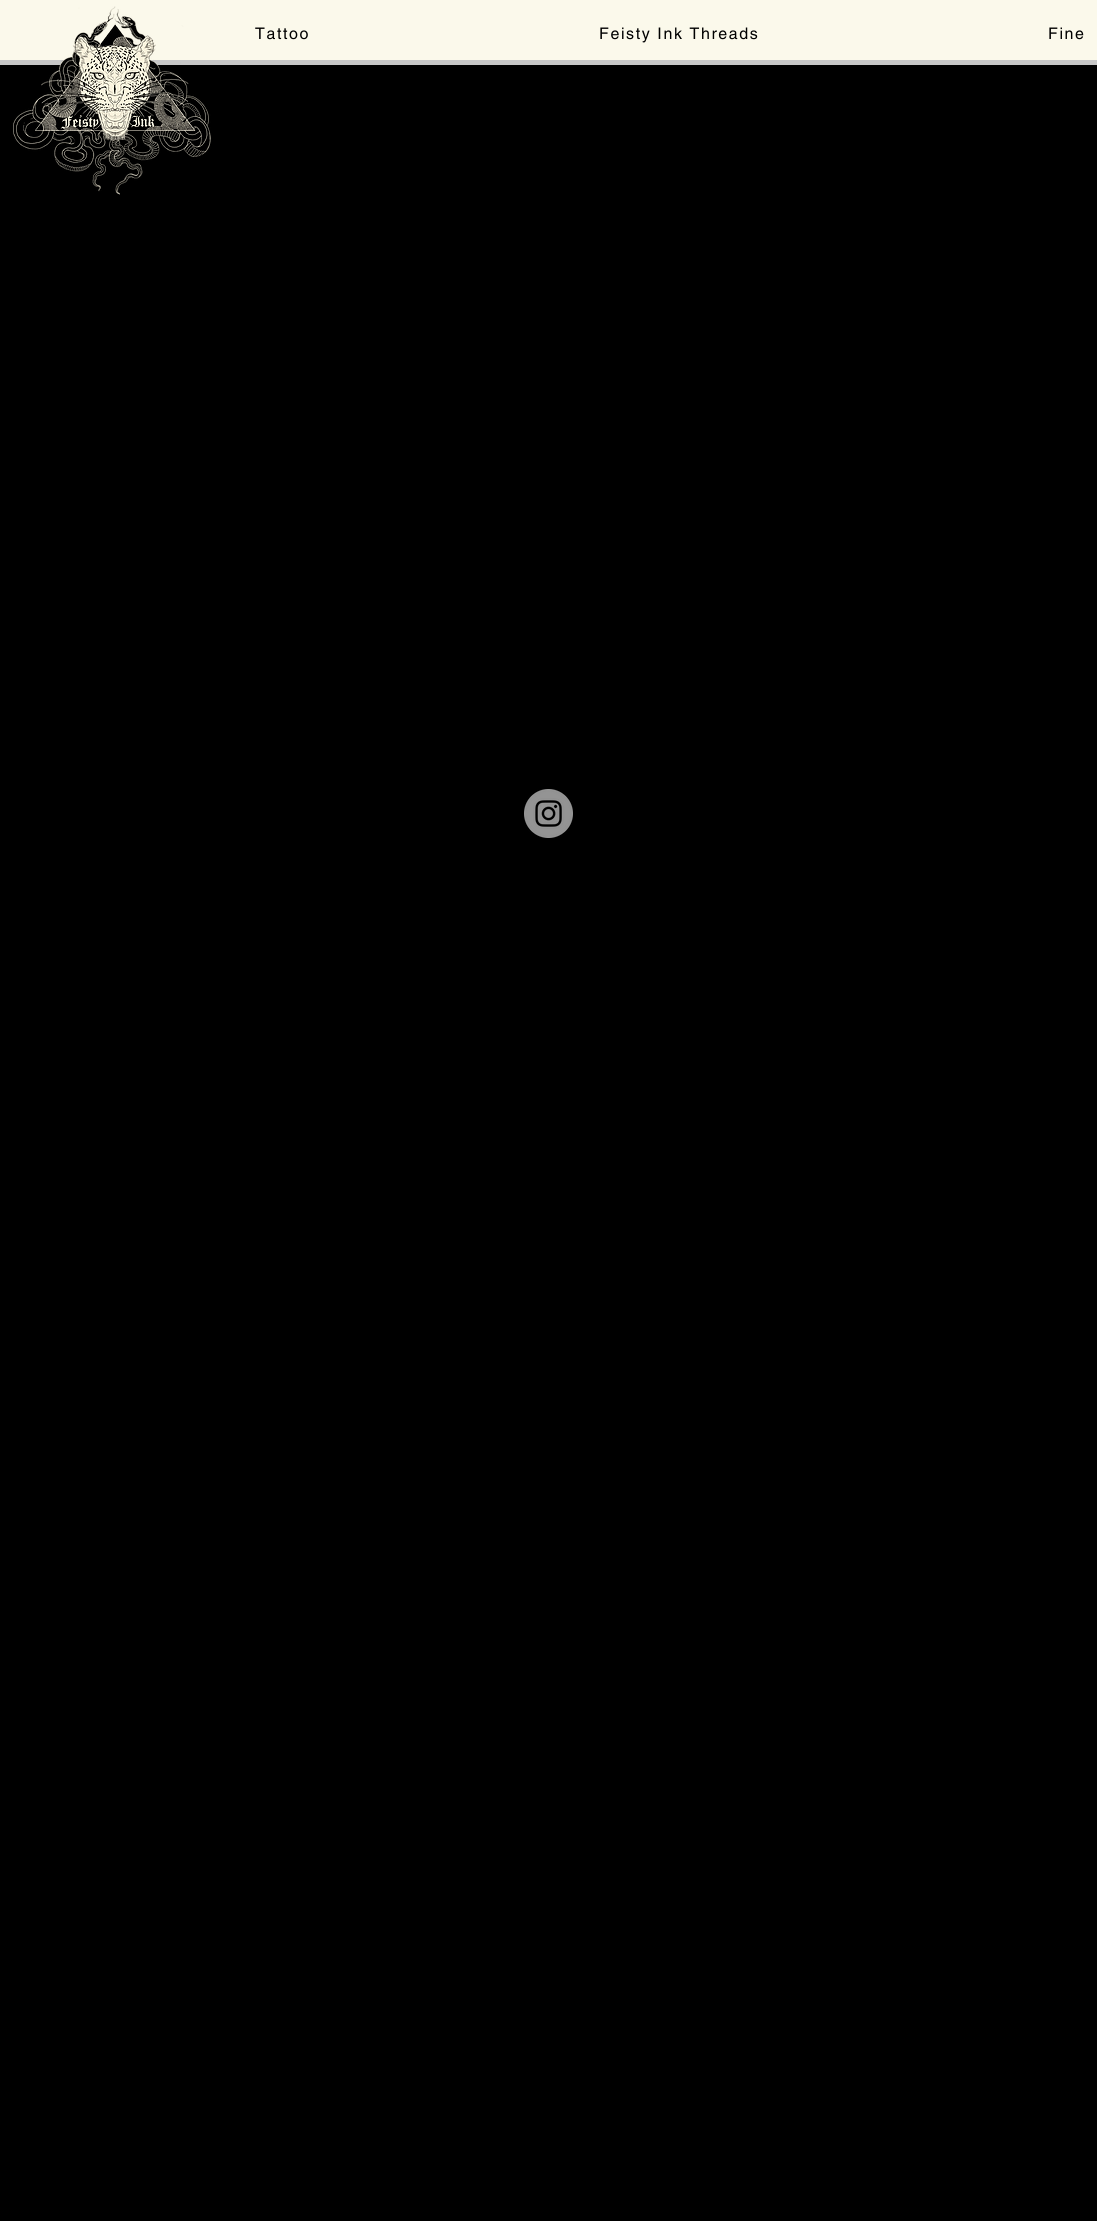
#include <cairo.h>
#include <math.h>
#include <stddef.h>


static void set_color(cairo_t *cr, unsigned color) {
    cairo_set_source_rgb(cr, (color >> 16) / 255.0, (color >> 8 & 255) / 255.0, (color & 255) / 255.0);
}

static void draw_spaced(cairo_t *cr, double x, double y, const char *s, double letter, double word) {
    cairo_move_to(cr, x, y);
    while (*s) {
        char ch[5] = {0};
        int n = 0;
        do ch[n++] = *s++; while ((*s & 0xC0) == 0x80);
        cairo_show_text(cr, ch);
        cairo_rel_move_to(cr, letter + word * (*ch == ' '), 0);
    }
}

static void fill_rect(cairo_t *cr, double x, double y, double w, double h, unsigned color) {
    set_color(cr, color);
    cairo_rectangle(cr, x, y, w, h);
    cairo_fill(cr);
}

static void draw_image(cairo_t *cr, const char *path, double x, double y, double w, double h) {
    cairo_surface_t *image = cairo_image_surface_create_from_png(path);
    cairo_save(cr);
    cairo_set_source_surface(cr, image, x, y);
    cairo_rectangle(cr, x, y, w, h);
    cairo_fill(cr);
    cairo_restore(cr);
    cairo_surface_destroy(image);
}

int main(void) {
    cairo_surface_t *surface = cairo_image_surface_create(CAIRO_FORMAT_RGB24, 1097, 2221);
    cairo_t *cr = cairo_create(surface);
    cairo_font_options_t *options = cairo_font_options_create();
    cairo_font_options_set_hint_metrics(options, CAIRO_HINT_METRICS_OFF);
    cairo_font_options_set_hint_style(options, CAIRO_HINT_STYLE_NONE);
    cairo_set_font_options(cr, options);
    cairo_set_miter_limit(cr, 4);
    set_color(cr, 0x000000);
    cairo_paint(cr);
    fill_rect(cr, 0, 0, 1097, 60, 0xFBF9EB);
    fill_rect(cr, 0, 60, 1097, 5, 0xC7C7C7);
    draw_image(cr, "assets/img1.png", 13, 6, 198, 189);
    cairo_select_font_face(cr, "helvetica", CAIRO_FONT_SLANT_NORMAL, CAIRO_FONT_WEIGHT_NORMAL);
    cairo_set_font_size(cr, 16);
    set_color(cr, 0x000000);
    draw_spaced(cr, 255, 39, "Tattoo", 1.6, 0);
    draw_spaced(cr, 599, 39, "Feisty Ink Threads", 1.6, 0);
    draw_spaced(cr, 1048, 39, "Fine", 1.6, 0);
    draw_image(cr, "assets/img2.png", 524, 789, 49, 49);
    cairo_surface_write_to_png(surface, "output.png");
    cairo_font_options_destroy(options);
    cairo_destroy(cr);
    cairo_surface_destroy(surface);
    return 0;
}
